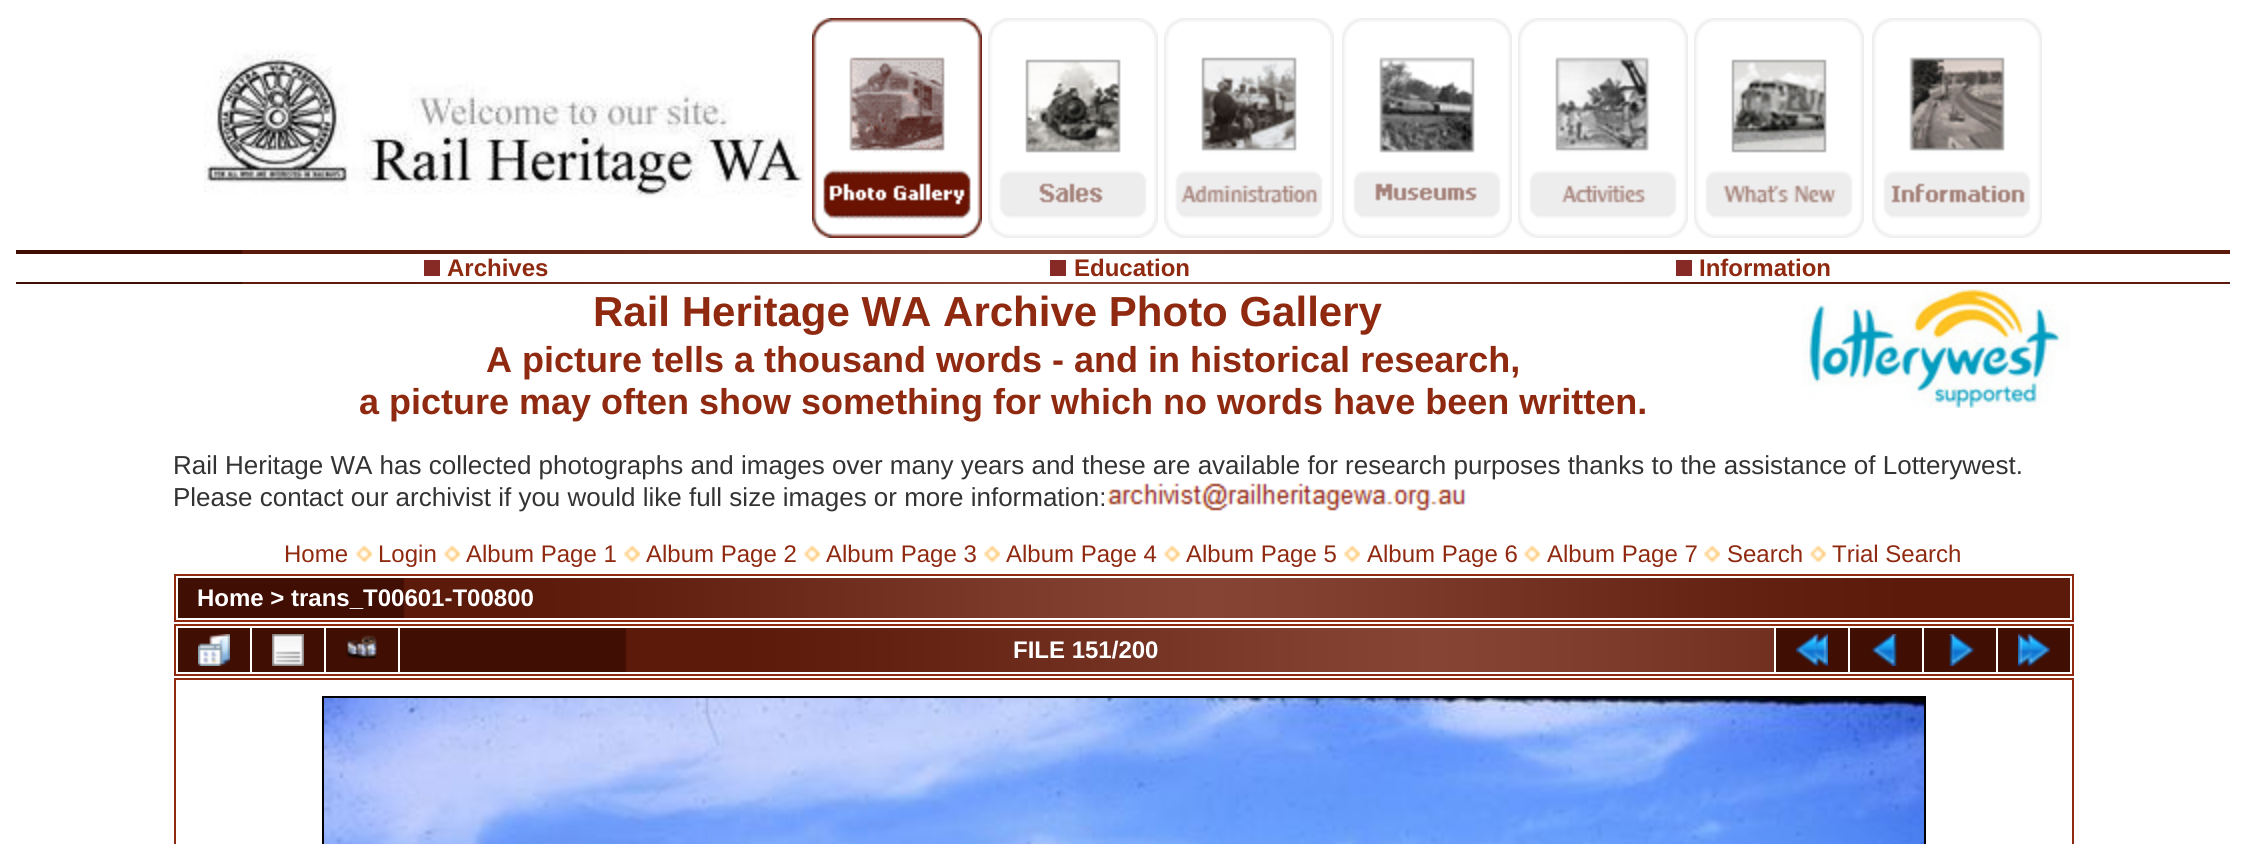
#include <cairo.h>
#include <math.h>
#include <stddef.h>


static void set_color(cairo_t *cr, unsigned color) {
    cairo_set_source_rgb(cr, (color >> 16) / 255.0, (color >> 8 & 255) / 255.0, (color & 255) / 255.0);
}

static void draw_text(cairo_t *cr, double x, double y, const char *s, const char *family, double size, int italic, int bold, unsigned color) {
    cairo_select_font_face(cr, family, italic ? CAIRO_FONT_SLANT_ITALIC : CAIRO_FONT_SLANT_NORMAL,
        bold ? CAIRO_FONT_WEIGHT_BOLD : CAIRO_FONT_WEIGHT_NORMAL);
    cairo_set_font_size(cr, size);
    set_color(cr, color);
    cairo_move_to(cr, x, y);
    cairo_show_text(cr, s);
}

static void fill_rect(cairo_t *cr, double x, double y, double w, double h, unsigned color) {
    set_color(cr, color);
    cairo_rectangle(cr, x, y, w, h);
    cairo_fill(cr);
}

static void draw_image(cairo_t *cr, const char *path, double x, double y, double w, double h) {
    cairo_surface_t *image = cairo_image_surface_create_from_png(path);
    cairo_save(cr);
    cairo_set_source_surface(cr, image, x, y);
    cairo_rectangle(cr, x, y, w, h);
    cairo_fill(cr);
    cairo_restore(cr);
    cairo_surface_destroy(image);
}

int main(void) {
    cairo_surface_t *surface = cairo_image_surface_create(CAIRO_FORMAT_RGB24, 2245, 844);
    cairo_t *cr = cairo_create(surface);
    cairo_font_options_t *options = cairo_font_options_create();
    cairo_font_options_set_hint_metrics(options, CAIRO_HINT_METRICS_OFF);
    cairo_font_options_set_hint_style(options, CAIRO_HINT_STYLE_NONE);
    cairo_set_font_options(cr, options);
    cairo_set_miter_limit(cr, 4);
    set_color(cr, 0xFFFFFF);
    cairo_paint(cr);
    draw_image(cr, "assets/img1.png", 204, 50, 600, 148);
    draw_image(cr, "assets/img2.png", 812, 18, 170, 220);
    draw_image(cr, "assets/img3.png", 988, 18, 170, 220);
    draw_image(cr, "assets/img4.png", 1164, 18, 170, 220);
    draw_image(cr, "assets/img5.png", 1342, 18, 170, 220);
    draw_image(cr, "assets/img6.png", 1518, 18, 170, 220);
    draw_image(cr, "assets/img7.png", 1694, 18, 170, 220);
    draw_image(cr, "assets/img8.png", 1872, 18, 170, 220);
    draw_image(cr, "assets/img9.png", 16, 250, 2214, 4);
    fill_rect(cr, 424, 260, 16, 16, 0x872A25);
    draw_text(cr, 447, 276, "Archives", "Liberation Sans", 24, 0, 1, 0x8F2910);
    fill_rect(cr, 1050, 260, 16, 16, 0x872A25);
    draw_text(cr, 1074, 276, "Education", "Liberation Sans", 24, 0, 1, 0x8F2910);
    fill_rect(cr, 1676, 260, 16, 16, 0x872A25);
    draw_text(cr, 1699, 276, "Information", "Liberation Sans", 24, 0, 1, 0x8F2910);
    draw_image(cr, "assets/img10.png", 16, 282, 2214, 2);
    draw_text(cr, 593, 326, "Rail Heritage WA Archive Photo Gallery", "Liberation Sans", 42, 0, 1, 0x8F2910);
    draw_image(cr, "assets/img11.png", 1802, 288, 268, 120);
    draw_text(cr, 486, 372, "A picture tells a thousand words - and in historical research,", "Liberation Sans", 36, 0, 1, 0x8F2910);
    draw_text(cr, 359, 414, "a picture may often show something for which no words have been written.", "Liberation Sans", 36, 0, 1, 0x8F2910);
    draw_text(cr, 173, 474, "Rail Heritage WA has collected photographs and images over many years and these are available for research purposes thanks to the assistance of Lotterywest.", "Liberation Sans", 26, 0, 0, 0x333333);
    draw_text(cr, 173, 506, "Please contact our archivist if you would like full size images or more information:", "Liberation Sans", 26, 0, 0, 0x333333);
    draw_image(cr, "assets/img12.png", 1107, 483, 359, 28);
    draw_text(cr, 284, 562, "Home", "Liberation Sans", 24, 0, 0, 0x8F2910);
    draw_image(cr, "assets/img13.png", 356, 546, 16, 16);
    draw_text(cr, 378, 562, "Login", "Liberation Sans", 24, 0, 0, 0x8F2910);
    draw_image(cr, "assets/img13.png", 444, 546, 16, 16);
    draw_text(cr, 466, 562, "Album Page 1", "Liberation Sans", 24, 0, 0, 0x8F2910);
    draw_image(cr, "assets/img13.png", 624, 546, 16, 16);
    draw_text(cr, 646, 562, "Album Page 2", "Liberation Sans", 24, 0, 0, 0x8F2910);
    draw_image(cr, "assets/img13.png", 804, 546, 16, 16);
    draw_text(cr, 826, 562, "Album Page 3", "Liberation Sans", 24, 0, 0, 0x8F2910);
    draw_image(cr, "assets/img13.png", 984, 546, 16, 16);
    draw_text(cr, 1006, 562, "Album Page 4", "Liberation Sans", 24, 0, 0, 0x8F2910);
    draw_image(cr, "assets/img13.png", 1164, 546, 16, 16);
    draw_text(cr, 1186, 562, "Album Page 5", "Liberation Sans", 24, 0, 0, 0x8F2910);
    draw_image(cr, "assets/img13.png", 1344, 546, 16, 16);
    draw_text(cr, 1367, 562, "Album Page 6", "Liberation Sans", 24, 0, 0, 0x8F2910);
    draw_image(cr, "assets/img13.png", 1524, 546, 16, 16);
    draw_text(cr, 1547, 562, "Album Page 7", "Liberation Sans", 24, 0, 0, 0x8F2910);
    draw_image(cr, "assets/img13.png", 1704, 546, 16, 16);
    draw_text(cr, 1727, 562, "Search", "Liberation Sans", 24, 0, 0, 0x8F2910);
    draw_image(cr, "assets/img13.png", 1810, 546, 16, 16);
    draw_text(cr, 1832, 562, "Trial Search", "Liberation Sans", 24, 0, 0, 0x8F2910);
    cairo_rectangle(cr, 175, 575, 1898, 46);
    cairo_stroke(cr);
    draw_image(cr, "assets/img14.png", 178, 578, 1892, 40);
    draw_text(cr, 197, 606, "Home > trans_T00601-T00800", "Liberation Sans", 24, 0, 1, 0xFFFFFF);
    cairo_rectangle(cr, 175, 625, 1898, 50);
    set_color(cr, 0x8F2910);
    cairo_stroke(cr);
    fill_rect(cr, 178, 628, 72, 44, 0x400E03);
    draw_image(cr, "assets/img15.png", 198, 634, 32, 32);
    fill_rect(cr, 252, 628, 72, 44, 0x400E03);
    draw_image(cr, "assets/img16.png", 272, 634, 32, 32);
    fill_rect(cr, 326, 628, 72, 44, 0x400E03);
    draw_image(cr, "assets/img17.png", 346, 635, 32, 24);
    draw_image(cr, "assets/img18.png", 400, 628, 1374, 44);
    draw_text(cr, 1013, 658, "FILE 151/200", "Liberation Sans", 24, 0, 1, 0xFFFFFF);
    fill_rect(cr, 1776, 628, 72, 44, 0x400E03);
    draw_image(cr, "assets/img19.png", 1796, 634, 32, 32);
    fill_rect(cr, 1850, 628, 72, 44, 0x400E03);
    draw_image(cr, "assets/img20.png", 1871, 634, 26, 32);
    fill_rect(cr, 1924, 628, 72, 44, 0x400E03);
    draw_image(cr, "assets/img21.png", 1949, 634, 26, 32);
    fill_rect(cr, 1998, 628, 72, 44, 0x400E03);
    draw_image(cr, "assets/img22.png", 2018, 634, 32, 32);
    cairo_rectangle(cr, 175, 679, 1898, 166);
    set_color(cr, 0x8F2910);
    cairo_stroke(cr);
    cairo_rectangle(cr, 323, 697, 1602, 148);
    set_color(cr, 0x000000);
    cairo_stroke(cr);
    draw_image(cr, "assets/img23.png", 324, 698, 1600, 146);
    cairo_surface_write_to_png(surface, "output.png");
    cairo_font_options_destroy(options);
    cairo_destroy(cr);
    cairo_surface_destroy(surface);
    return 0;
}
